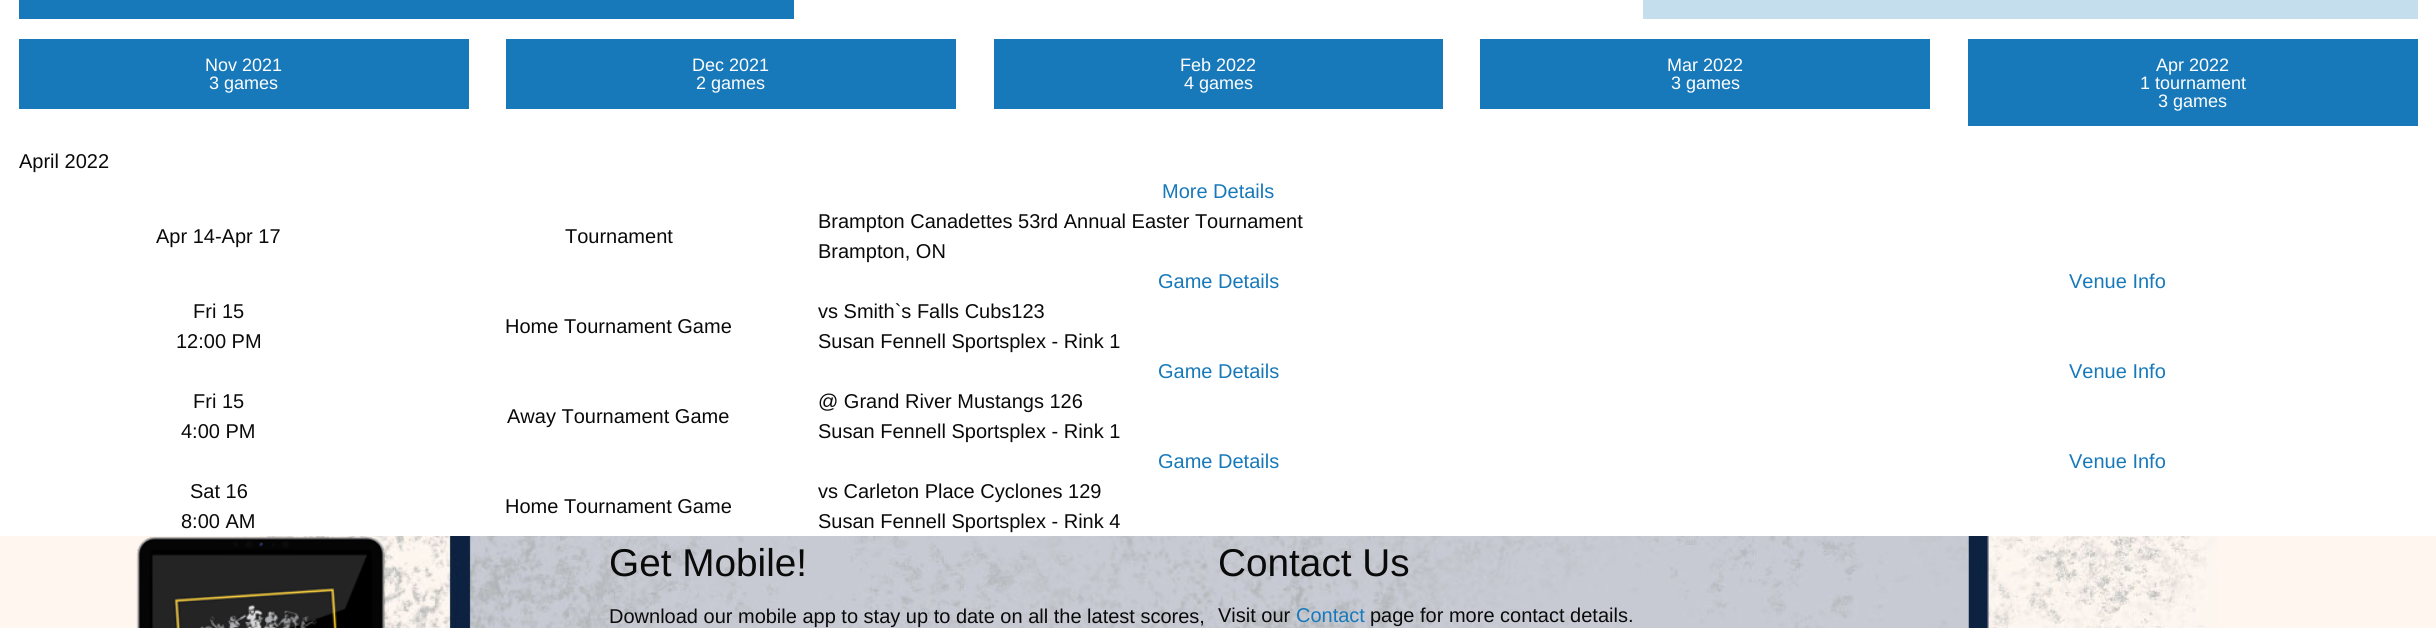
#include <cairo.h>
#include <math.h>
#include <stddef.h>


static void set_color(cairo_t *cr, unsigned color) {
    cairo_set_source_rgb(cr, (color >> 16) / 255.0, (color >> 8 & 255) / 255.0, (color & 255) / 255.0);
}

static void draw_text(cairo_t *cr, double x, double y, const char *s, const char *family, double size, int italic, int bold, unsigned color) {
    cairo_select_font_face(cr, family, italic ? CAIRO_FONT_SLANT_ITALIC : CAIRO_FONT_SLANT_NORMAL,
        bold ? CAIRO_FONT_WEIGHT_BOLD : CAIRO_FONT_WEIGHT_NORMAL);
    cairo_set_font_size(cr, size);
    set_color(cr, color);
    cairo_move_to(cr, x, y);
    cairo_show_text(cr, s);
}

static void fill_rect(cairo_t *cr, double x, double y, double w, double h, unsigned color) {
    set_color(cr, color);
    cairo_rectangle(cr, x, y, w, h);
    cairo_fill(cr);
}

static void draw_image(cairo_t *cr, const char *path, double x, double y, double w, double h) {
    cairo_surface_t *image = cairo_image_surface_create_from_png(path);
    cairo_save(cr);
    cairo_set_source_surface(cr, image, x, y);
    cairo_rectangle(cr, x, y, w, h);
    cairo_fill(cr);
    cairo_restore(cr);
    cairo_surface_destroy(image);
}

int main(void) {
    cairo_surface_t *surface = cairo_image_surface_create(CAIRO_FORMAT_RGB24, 2436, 628);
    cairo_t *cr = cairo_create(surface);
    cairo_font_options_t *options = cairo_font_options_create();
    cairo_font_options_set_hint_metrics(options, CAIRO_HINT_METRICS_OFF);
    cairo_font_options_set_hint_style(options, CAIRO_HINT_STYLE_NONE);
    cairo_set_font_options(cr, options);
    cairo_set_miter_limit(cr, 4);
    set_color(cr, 0xFEF6EF);
    cairo_paint(cr);
    draw_image(cr, "assets/img1.png", 219, 536, 1999, 92);
    fill_rect(cr, 0, 0, 2436, 536, 0xFFFFFF);
    fill_rect(cr, 19, 0, 775, 19, 0x1779BA);
    fill_rect(cr, 1643, 0, 775, 19, 0xC5DEEE);
    fill_rect(cr, 19, 39, 450, 70, 0x1779BA);
    draw_text(cr, 205, 71, "Nov 2021", "Liberation Sans", 18, 0, 0, 0xFEFEFE);
    draw_text(cr, 209, 89, "3 games", "Liberation Sans", 18, 0, 0, 0xFEFEFE);
    fill_rect(cr, 506, 39, 450, 70, 0x1779BA);
    draw_text(cr, 692, 71, "Dec 2021", "Liberation Sans", 18, 0, 0, 0xFEFEFE);
    draw_text(cr, 696, 89, "2 games", "Liberation Sans", 18, 0, 0, 0xFEFEFE);
    fill_rect(cr, 994, 39, 449, 70, 0x1779BA);
    draw_text(cr, 1180, 71, "Feb 2022", "Liberation Sans", 18, 0, 0, 0xFEFEFE);
    draw_text(cr, 1184, 89, "4 games", "Liberation Sans", 18, 0, 0, 0xFEFEFE);
    fill_rect(cr, 1480, 39, 450, 70, 0x1779BA);
    draw_text(cr, 1667, 71, "Mar 2022", "Liberation Sans", 18, 0, 0, 0xFEFEFE);
    draw_text(cr, 1671, 89, "3 games", "Liberation Sans", 18, 0, 0, 0xFEFEFE);
    fill_rect(cr, 1968, 39, 450, 87, 0x1779BA);
    draw_text(cr, 2156, 71, "Apr 2022", "Liberation Sans", 18, 0, 0, 0xFEFEFE);
    draw_text(cr, 2140, 89, "1 tournament", "Liberation Sans", 18, 0, 0, 0xFEFEFE);
    draw_text(cr, 2158, 107, "3 games", "Liberation Sans", 18, 0, 0, 0xFEFEFE);
    draw_text(cr, 19, 168, "April 2022", "Liberation Sans", 20, 0, 0, 0x0A0A0A);
    draw_text(cr, 1162, 198, "More Details", "Liberation Sans", 20, 0, 0, 0x1779BA);
    draw_text(cr, 156, 243, "Apr 14-Apr 17", "Liberation Sans", 20, 0, 0, 0x0A0A0A);
    draw_text(cr, 565, 243, "Tournament", "Liberation Sans", 20, 0, 0, 0x0A0A0A);
    draw_text(cr, 818, 228, "Brampton Canadettes 53rd Annual Easter Tournament", "Liberation Sans", 20, 0, 0, 0x0A0A0A);
    draw_text(cr, 818, 258, "Brampton, ON", "Liberation Sans", 20, 0, 0, 0x0A0A0A);
    draw_text(cr, 1158, 288, "Game Details", "Liberation Sans", 20, 0, 0, 0x1779BA);
    draw_text(cr, 2069, 288, "Venue Info", "Liberation Sans", 20, 0, 0, 0x1779BA);
    draw_text(cr, 193, 318, "Fri 15", "Liberation Sans", 20, 0, 0, 0x0A0A0A);
    draw_text(cr, 176, 348, "12:00 PM", "Liberation Sans", 20, 0, 0, 0x0A0A0A);
    draw_text(cr, 505, 333, "Home Tournament Game", "Liberation Sans", 20, 0, 0, 0x0A0A0A);
    draw_text(cr, 818, 318, "vs Smith`s Falls Cubs123", "Liberation Sans", 20, 0, 0, 0x0A0A0A);
    draw_text(cr, 818, 348, "Susan Fennell Sportsplex - Rink 1", "Liberation Sans", 20, 0, 0, 0x0A0A0A);
    draw_text(cr, 1158, 378, "Game Details", "Liberation Sans", 20, 0, 0, 0x1779BA);
    draw_text(cr, 2069, 378, "Venue Info", "Liberation Sans", 20, 0, 0, 0x1779BA);
    draw_text(cr, 193, 408, "Fri 15", "Liberation Sans", 20, 0, 0, 0x0A0A0A);
    draw_text(cr, 181, 438, "4:00 PM", "Liberation Sans", 20, 0, 0, 0x0A0A0A);
    draw_text(cr, 507, 423, "Away Tournament Game", "Liberation Sans", 20, 0, 0, 0x0A0A0A);
    draw_text(cr, 818, 408, "@ Grand River Mustangs 126", "Liberation Sans", 20, 0, 0, 0x0A0A0A);
    draw_text(cr, 818, 438, "Susan Fennell Sportsplex - Rink 1", "Liberation Sans", 20, 0, 0, 0x0A0A0A);
    draw_text(cr, 1158, 468, "Game Details", "Liberation Sans", 20, 0, 0, 0x1779BA);
    draw_text(cr, 2069, 468, "Venue Info", "Liberation Sans", 20, 0, 0, 0x1779BA);
    draw_text(cr, 190, 498, "Sat 16", "Liberation Sans", 20, 0, 0, 0x0A0A0A);
    draw_text(cr, 181, 528, "8:00 AM", "Liberation Sans", 20, 0, 0, 0x0A0A0A);
    draw_text(cr, 505, 513, "Home Tournament Game", "Liberation Sans", 20, 0, 0, 0x0A0A0A);
    draw_text(cr, 818, 498, "vs Carleton Place Cyclones 129", "Liberation Sans", 20, 0, 0, 0x0A0A0A);
    draw_text(cr, 818, 528, "Susan Fennell Sportsplex - Rink 4", "Liberation Sans", 20, 0, 0, 0x0A0A0A);
    draw_image(cr, "assets/img2.png", 136, 536, 250, 92);
    draw_text(cr, 609, 576, "Get Mobile!", "Liberation Sans", 38.75, 0, 0, 0x0A0A0A);
    draw_text(cr, 609, 623, "Download our mobile app to stay up to date on all the latest scores,", "Liberation Sans", 20, 0, 0, 0x0A0A0A);
    draw_text(cr, 1218, 576, "Contact Us", "Liberation Sans", 38.75, 0, 0, 0x0A0A0A);
    draw_text(cr, 1218, 622, "Visit our", "Liberation Sans", 20, 0, 0, 0x0A0A0A);
    draw_text(cr, 1296, 622, "Contact", "Liberation Sans", 20, 0, 0, 0x1779BA);
    draw_text(cr, 1370, 622, "page for more contact details.", "Liberation Sans", 20, 0, 0, 0x0A0A0A);
    cairo_surface_write_to_png(surface, "output.png");
    cairo_font_options_destroy(options);
    cairo_destroy(cr);
    cairo_surface_destroy(surface);
    return 0;
}
